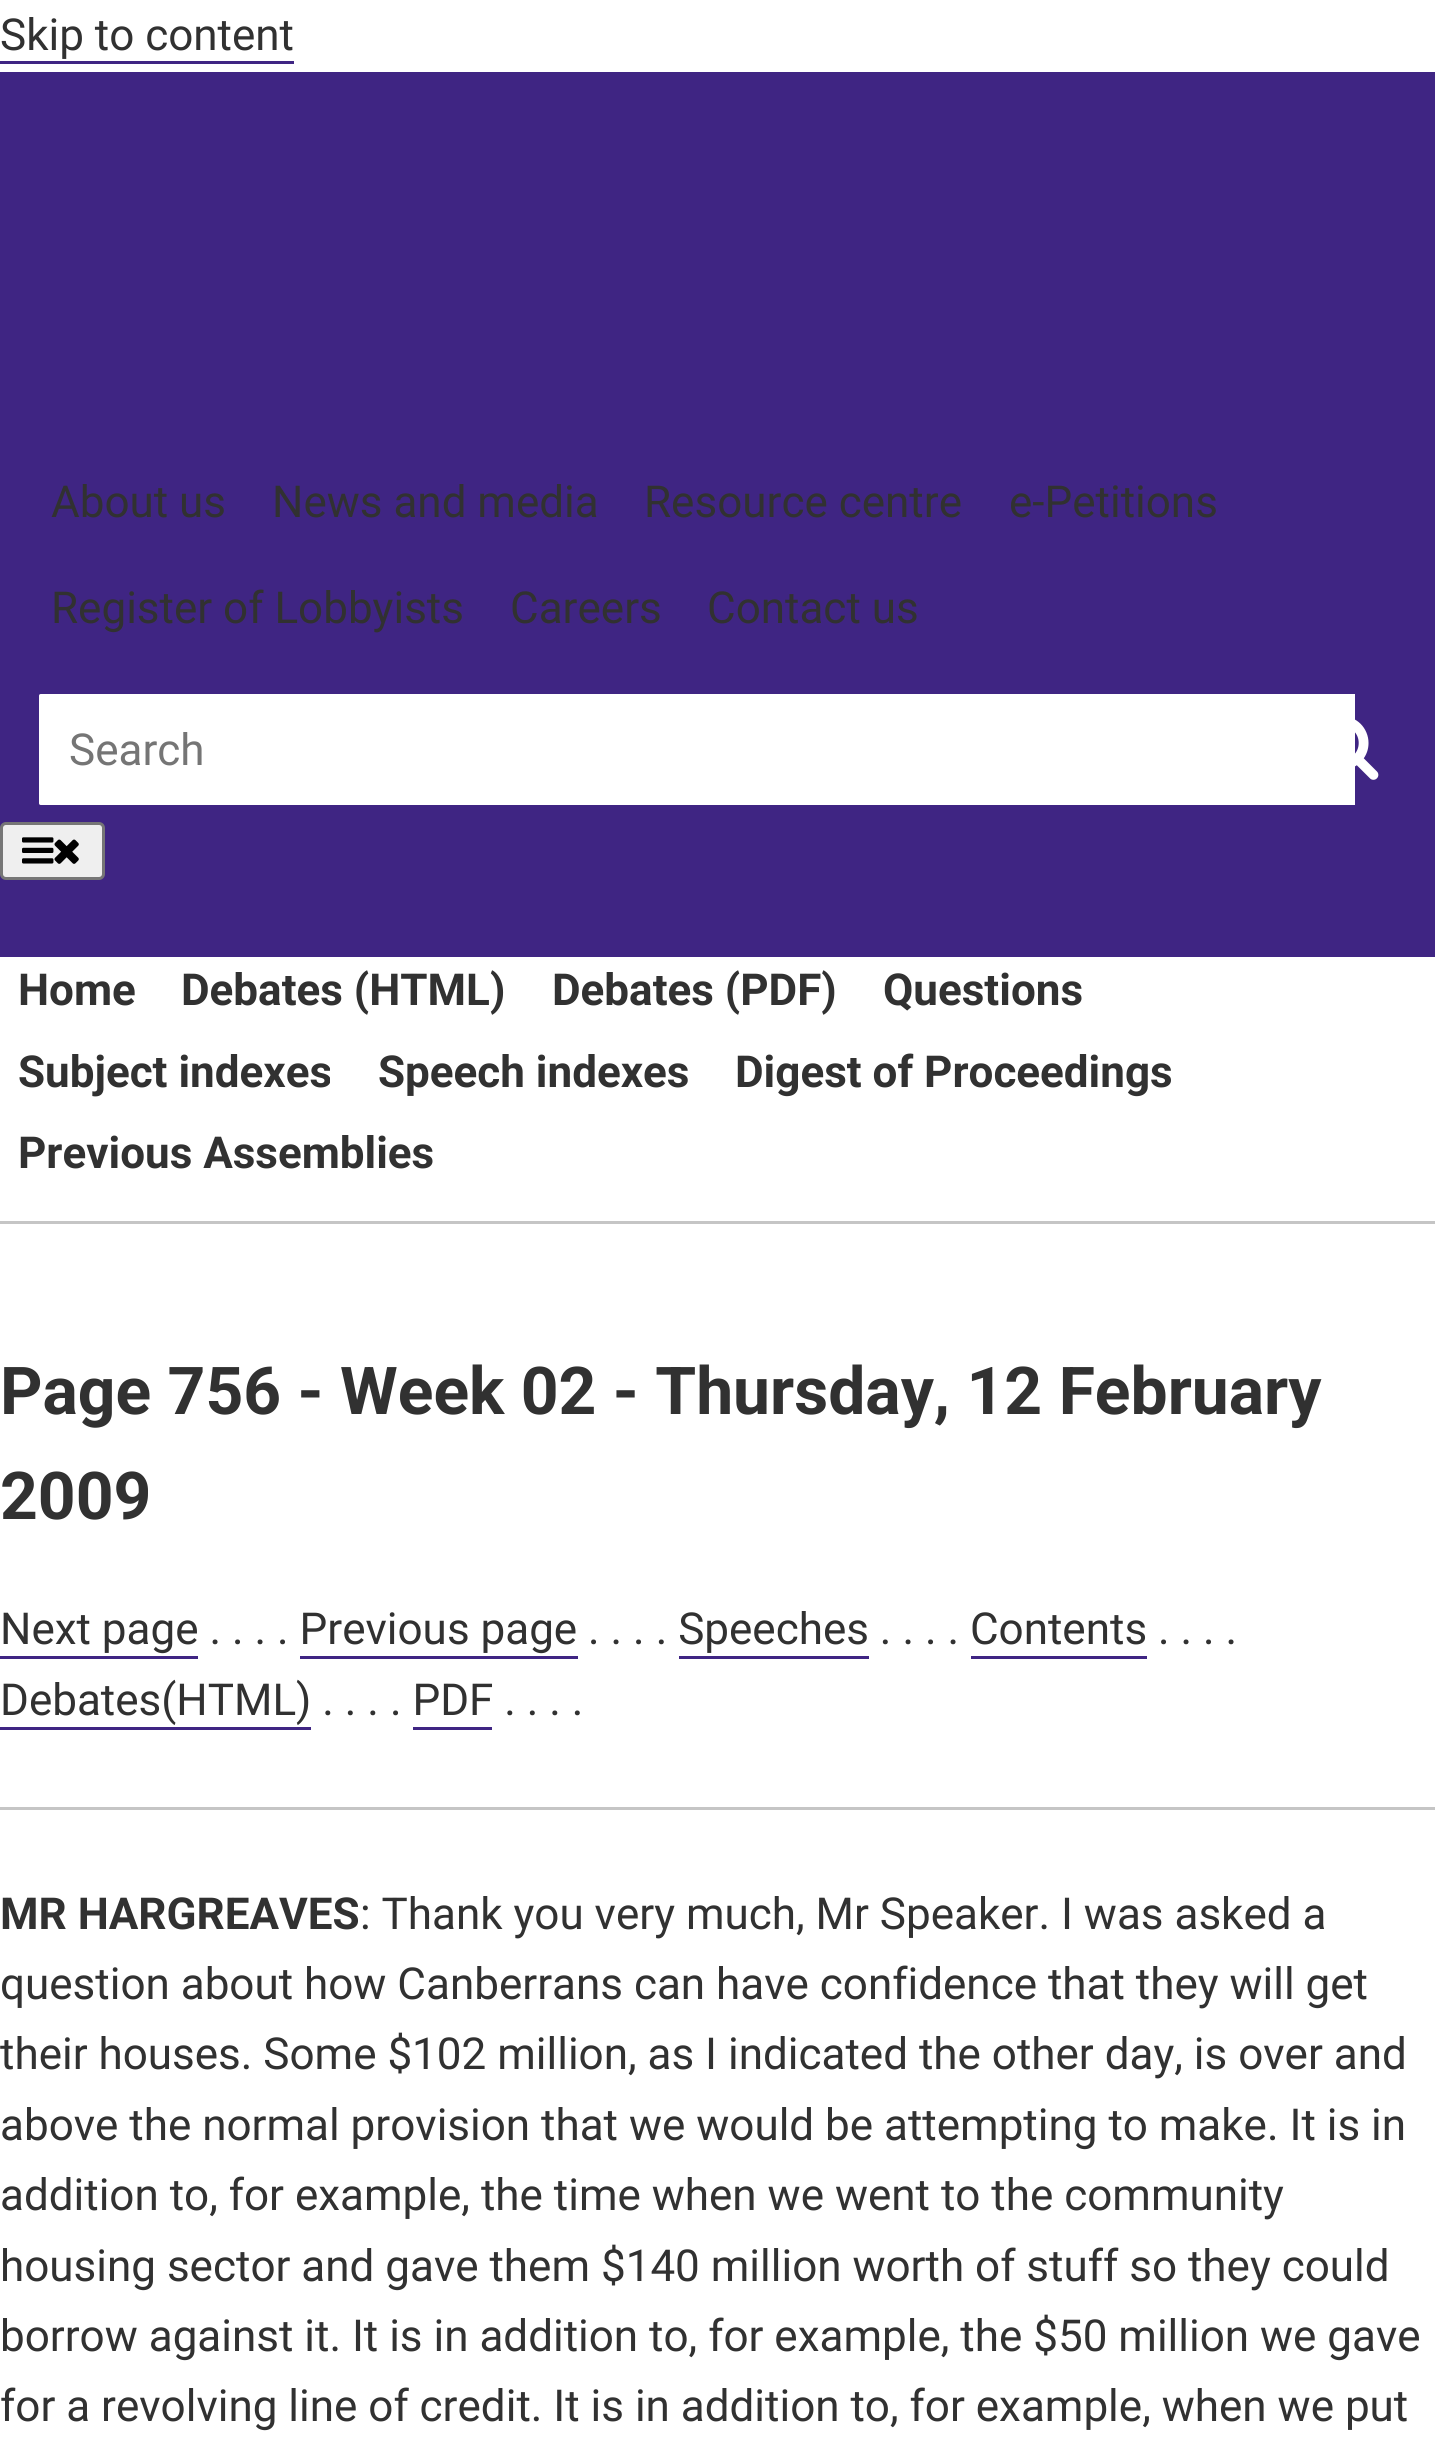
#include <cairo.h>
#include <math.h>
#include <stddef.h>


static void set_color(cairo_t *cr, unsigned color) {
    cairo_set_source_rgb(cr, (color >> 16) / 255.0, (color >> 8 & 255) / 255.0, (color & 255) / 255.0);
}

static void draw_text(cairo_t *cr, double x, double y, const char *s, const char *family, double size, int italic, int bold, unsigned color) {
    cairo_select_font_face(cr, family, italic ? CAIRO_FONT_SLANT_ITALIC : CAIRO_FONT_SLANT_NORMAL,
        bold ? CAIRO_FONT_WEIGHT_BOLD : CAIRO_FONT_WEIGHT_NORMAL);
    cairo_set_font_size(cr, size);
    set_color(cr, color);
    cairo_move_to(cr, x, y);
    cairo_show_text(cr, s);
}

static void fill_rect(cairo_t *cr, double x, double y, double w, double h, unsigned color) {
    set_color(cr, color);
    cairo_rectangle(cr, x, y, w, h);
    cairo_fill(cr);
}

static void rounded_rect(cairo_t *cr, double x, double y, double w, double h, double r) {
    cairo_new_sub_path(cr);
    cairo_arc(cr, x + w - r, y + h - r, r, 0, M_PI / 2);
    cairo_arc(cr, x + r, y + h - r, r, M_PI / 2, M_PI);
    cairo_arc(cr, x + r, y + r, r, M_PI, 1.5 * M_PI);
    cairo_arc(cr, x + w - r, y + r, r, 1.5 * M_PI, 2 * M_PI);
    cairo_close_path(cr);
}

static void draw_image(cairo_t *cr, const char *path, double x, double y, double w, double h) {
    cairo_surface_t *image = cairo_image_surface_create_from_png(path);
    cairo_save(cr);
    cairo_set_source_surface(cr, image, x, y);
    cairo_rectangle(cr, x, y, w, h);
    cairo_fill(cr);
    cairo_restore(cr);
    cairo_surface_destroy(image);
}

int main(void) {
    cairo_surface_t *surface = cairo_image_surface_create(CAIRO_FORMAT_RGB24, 1435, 2445);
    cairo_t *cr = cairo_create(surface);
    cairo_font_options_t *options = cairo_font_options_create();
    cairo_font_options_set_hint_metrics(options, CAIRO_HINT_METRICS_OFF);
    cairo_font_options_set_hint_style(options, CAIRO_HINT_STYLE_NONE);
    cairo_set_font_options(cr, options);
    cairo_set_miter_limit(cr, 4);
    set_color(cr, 0xFFFFFF);
    cairo_paint(cr);
    draw_text(cr, 0, 50, "Skip to content", "Roboto", 44, 0, 0, 0x313131);
    fill_rect(cr, 0, 61, 294, 3, 0x3F2583);
    fill_rect(cr, 0, 72, 1435, 885, 0x3F2583);
    draw_text(cr, 51, 517, "About us", "Roboto", 44, 0, 0, 0x313131);
    draw_text(cr, 272, 517, "News and media", "Roboto", 44, 0, 0, 0x313131);
    draw_text(cr, 644, 517, "Resource centre", "Roboto", 44, 0, 0, 0x313131);
    draw_text(cr, 1009, 517, "e-Petitions", "Roboto", 44, 0, 0, 0x313131);
    draw_text(cr, 51, 623, "Register of Lobbyists", "Roboto", 44, 0, 0, 0x313131);
    draw_text(cr, 510, 623, "Careers", "Roboto", 44, 0, 0, 0x313131);
    draw_text(cr, 707, 623, "Contact us", "Roboto", 44, 0, 0, 0x313131);
    set_color(cr, 0xFFFFFF);
    cairo_new_path(cr);
    cairo_move_to(cr, 41, 691);
    cairo_line_to(cr, 1358, 691);
    cairo_line_to(cr, 1358, 808);
    cairo_line_to(cr, 41, 808);
    cairo_curve_to(cr, 38, 808, 36, 806, 36, 803);
    cairo_line_to(cr, 36, 696);
    cairo_curve_to(cr, 36, 693, 38, 691, 41, 691);
    cairo_close_path(cr);
    cairo_fill_preserve(cr);
    set_color(cr, 0x3F2583);
    cairo_set_line_width(cr, 6);
    cairo_stroke(cr);
    draw_text(cr, 69, 765, "Search", "Roboto", 44, 0, 0, 0x757575);
    draw_image(cr, "assets/img1.png", 1355, 719, 24, 61);
    set_color(cr, 0xEFEFEF);
    rounded_rect(cr, 1.5, 823.5, 102, 55, 4.5);
    cairo_fill_preserve(cr);
    set_color(cr, 0x767676);
    cairo_set_line_width(cr, 3);
    cairo_stroke(cr);
    draw_image(cr, "assets/img2.png", 22, 837, 32, 27);
    draw_image(cr, "assets/img3.png", 54, 839, 25, 25);
    draw_text(cr, 18, 1005, "Home", "Roboto", 44, 0, 1, 0x313131);
    draw_text(cr, 181, 1005, "Debates (HTML)", "Roboto", 44, 0, 1, 0x313131);
    draw_text(cr, 552, 1005, "Debates (PDF)", "Roboto", 44, 0, 1, 0x313131);
    draw_text(cr, 883, 1005, "Questions", "Roboto", 44, 0, 1, 0x313131);
    draw_text(cr, 18, 1087, "Subject indexes", "Roboto", 44, 0, 1, 0x313131);
    draw_text(cr, 378, 1087, "Speech indexes", "Roboto", 44, 0, 1, 0x313131);
    draw_text(cr, 735, 1087, "Digest of Proceedings", "Roboto", 44, 0, 1, 0x313131);
    draw_text(cr, 18, 1168, "Previous Assemblies", "Roboto", 44, 0, 1, 0x313131);
    fill_rect(cr, 0, 1221, 1435, 3, 0xC5C5C5);
    draw_text(cr, 0, 1414, "Page 756 - Week 02 - Thursday, 12 February", "Roboto", 66, 0, 1, 0x313131);
    draw_text(cr, 0, 1519, "2009", "Roboto", 66, 0, 1, 0x313131);
    draw_text(cr, 0, 1644, "Next page . . . . Previous page . . . . Speeches . . . . Contents . . . .", "Roboto", 44, 0, 0, 0x313131);
    fill_rect(cr, 0, 1656, 198, 3, 0x3F2583);
    fill_rect(cr, 300, 1656, 278, 3, 0x3F2583);
    fill_rect(cr, 679, 1656, 190, 3, 0x3F2583);
    fill_rect(cr, 971, 1656, 176, 3, 0x3F2583);
    draw_text(cr, 0, 1715, "Debates(HTML) . . . . PDF . . . .", "Roboto", 44, 0, 0, 0x313131);
    fill_rect(cr, 0, 1727, 311, 3, 0x3F2583);
    fill_rect(cr, 413, 1727, 79, 3, 0x3F2583);
    fill_rect(cr, 0, 1807, 1435, 3, 0xC5C5C5);
    draw_text(cr, 0, 1929, "MR HARGREAVES", "Roboto", 44, 0, 1, 0x313131);
    draw_text(cr, 360, 1929, ": Thank you very much, Mr Speaker. I was asked a", "Roboto", 44, 0, 0, 0x313131);
    draw_text(cr, 0, 1999, "question about how Canberrans can have confidence that they will get", "Roboto", 44, 0, 0, 0x313131);
    draw_text(cr, 0, 2069, "their houses. Some $102 million, as I indicated the other day, is over and", "Roboto", 44, 0, 0, 0x313131);
    draw_text(cr, 0, 2140, "above the normal provision that we would be attempting to make. It is in", "Roboto", 44, 0, 0, 0x313131);
    draw_text(cr, 0, 2210, "addition to, for example, the time when we went to the community", "Roboto", 44, 0, 0, 0x313131);
    draw_text(cr, 0, 2281, "housing sector and gave them $140 million worth of stuff so they could", "Roboto", 44, 0, 0, 0x313131);
    draw_text(cr, 0, 2351, "borrow against it. It is in addition to, for example, the $50 million we gave", "Roboto", 44, 0, 0, 0x313131);
    draw_text(cr, 0, 2421, "for a revolving line of credit. It is in addition to, for example, when we put", "Roboto", 44, 0, 0, 0x313131);
    cairo_surface_write_to_png(surface, "output.png");
    cairo_font_options_destroy(options);
    cairo_destroy(cr);
    cairo_surface_destroy(surface);
    return 0;
}
